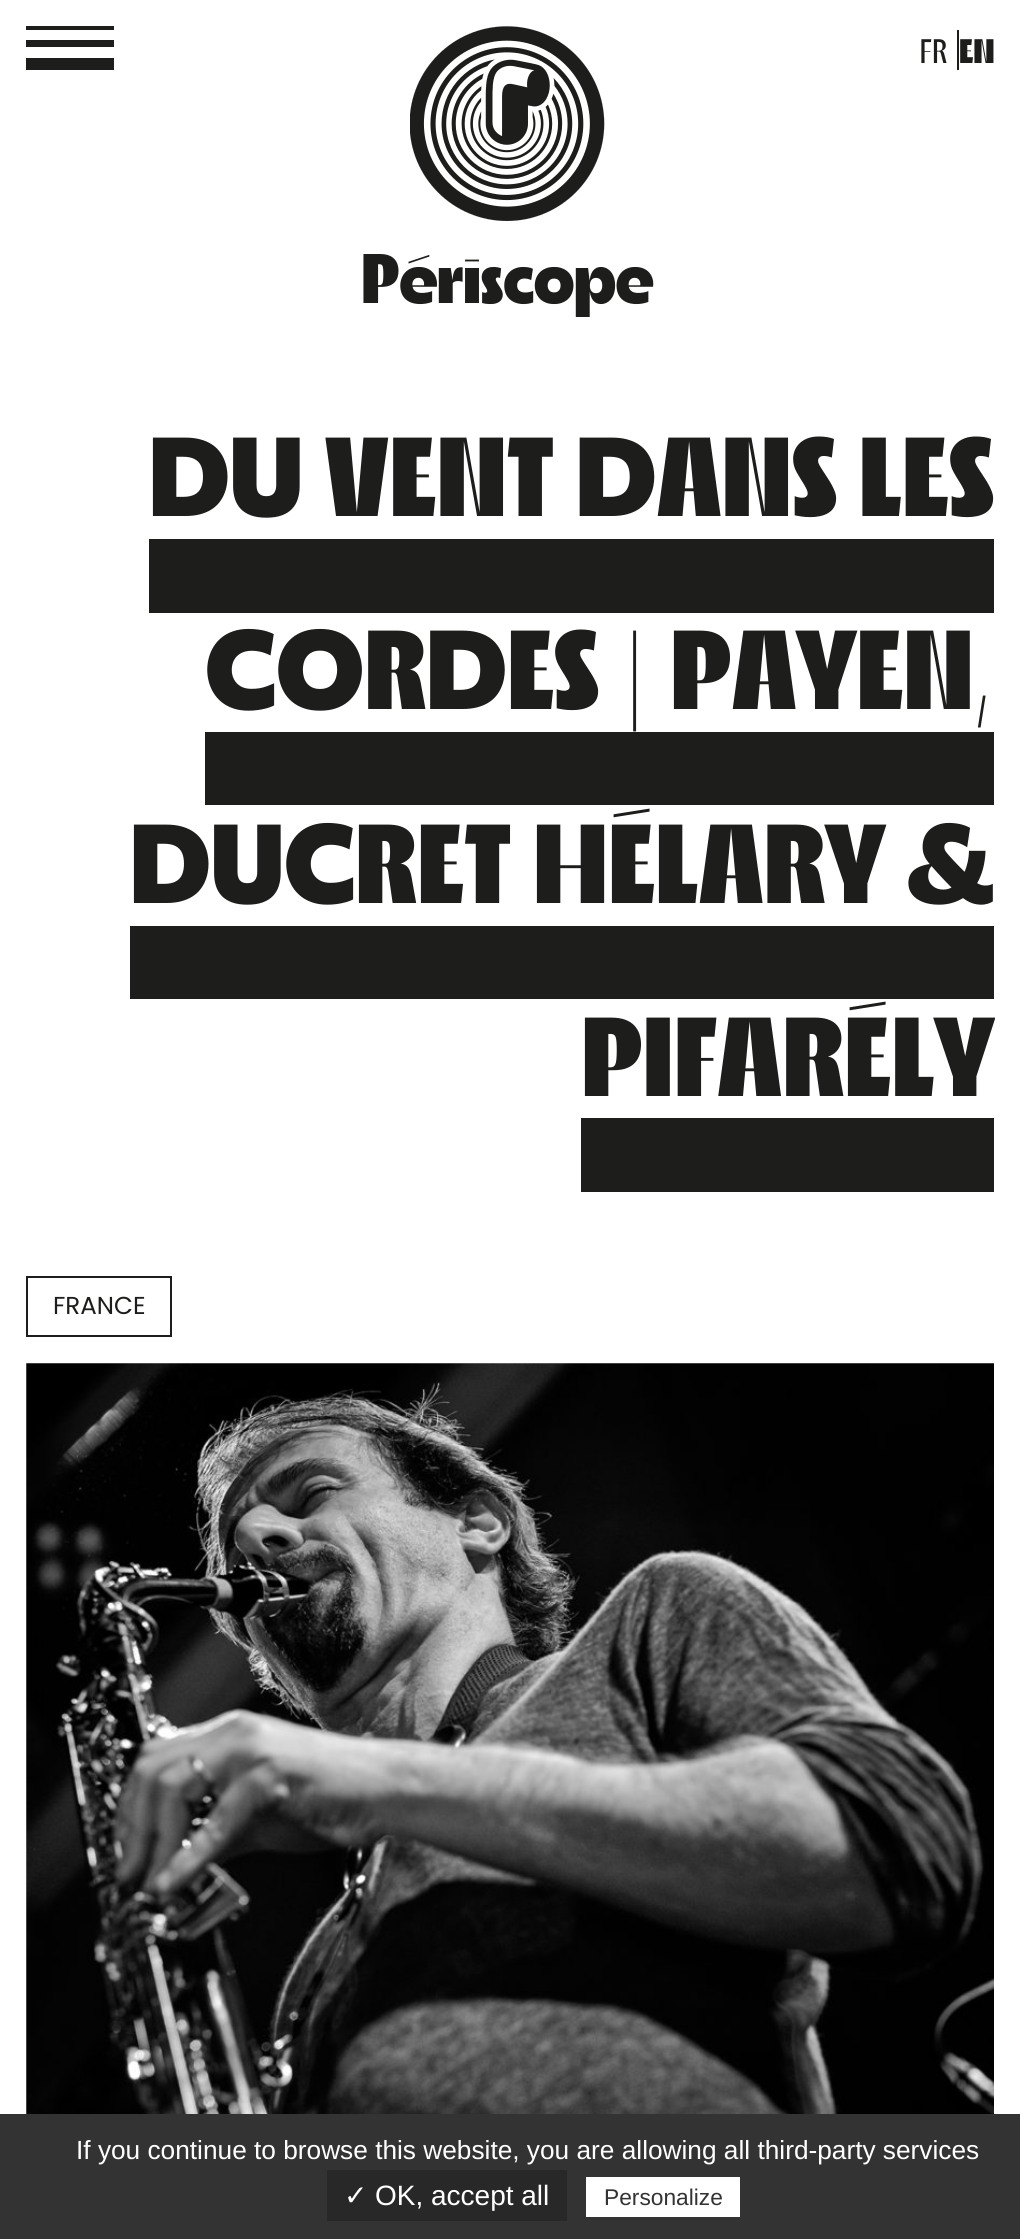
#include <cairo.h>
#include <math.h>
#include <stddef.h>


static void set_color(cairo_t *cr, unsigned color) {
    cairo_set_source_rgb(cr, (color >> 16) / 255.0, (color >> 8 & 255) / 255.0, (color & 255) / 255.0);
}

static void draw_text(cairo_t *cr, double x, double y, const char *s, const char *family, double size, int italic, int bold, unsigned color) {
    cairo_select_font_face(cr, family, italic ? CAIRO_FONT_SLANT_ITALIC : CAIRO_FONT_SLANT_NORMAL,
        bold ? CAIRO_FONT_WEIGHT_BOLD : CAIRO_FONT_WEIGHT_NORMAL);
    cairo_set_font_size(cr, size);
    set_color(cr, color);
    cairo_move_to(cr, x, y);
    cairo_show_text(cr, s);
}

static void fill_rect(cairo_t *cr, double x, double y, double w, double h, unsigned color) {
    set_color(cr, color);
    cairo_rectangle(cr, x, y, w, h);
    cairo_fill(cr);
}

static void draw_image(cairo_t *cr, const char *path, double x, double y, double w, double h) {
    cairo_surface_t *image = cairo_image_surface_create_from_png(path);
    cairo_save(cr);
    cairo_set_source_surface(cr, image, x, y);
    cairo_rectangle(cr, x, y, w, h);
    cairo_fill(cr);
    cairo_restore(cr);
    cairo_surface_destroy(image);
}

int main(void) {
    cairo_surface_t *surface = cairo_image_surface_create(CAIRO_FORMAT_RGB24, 1020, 2239);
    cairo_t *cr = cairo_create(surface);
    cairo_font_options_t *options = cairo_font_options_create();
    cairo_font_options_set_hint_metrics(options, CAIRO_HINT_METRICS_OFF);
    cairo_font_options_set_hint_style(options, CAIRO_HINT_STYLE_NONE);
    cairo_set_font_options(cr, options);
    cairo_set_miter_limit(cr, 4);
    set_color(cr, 0xFFFFFF);
    cairo_paint(cr);
    fill_rect(cr, 26, 26, 88, 4, 0x1D1D1B);
    fill_rect(cr, 26, 40, 88, 7, 0x1D1D1B);
    fill_rect(cr, 26, 58, 88, 12, 0x1D1D1B);
    draw_text(cr, 919, 63, "FR", "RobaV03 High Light", 34, 0, 0, 0x1D1D1B);
    fill_rect(cr, 957, 30, 2, 40, 0x1D1D1B);
    draw_text(cr, 959, 63, "EN", "RobaV03 High Black", 34, 0, 0, 0x1D1D1B);
    draw_image(cr, "assets/img1.png", 410, 26, 195, 196);
    draw_text(cr, 361, 303, "Périscope", "RobaV03 High Black", 70, 0, 0, 0x1D1D1B);
    draw_text(cr, 149, 516, "DU VENT DANS LES", "RobaV03 High Black", 112, 0, 0, 0x1D1D1B);
    fill_rect(cr, 149, 539, 845, 74, 0x1D1D1B);
    draw_text(cr, 205, 709, "CORDES | PAYEN,", "RobaV03 High Black", 112, 0, 0, 0x1D1D1B);
    draw_text(cr, 130, 903, "DUCRET HÉLARY &", "RobaV03 High Black", 112, 0, 0, 0x1D1D1B);
    fill_rect(cr, 205, 732, 789, 73, 0x1D1D1B);
    draw_text(cr, 581, 1096, "PIFARÉLY", "RobaV03 High Black", 112, 0, 0, 0x1D1D1B);
    fill_rect(cr, 130, 926, 864, 73, 0x1D1D1B);
    fill_rect(cr, 581, 1118, 413, 74, 0x1D1D1B);
    cairo_rectangle(cr, 27, 1277, 144, 59);
    cairo_stroke(cr);
    draw_text(cr, 53, 1314, "FRANCE", "Poppins", 24.5, 0, 0, 0x1D1D1B);
    draw_image(cr, "assets/img2.png", 26, 1363, 968, 751);
    fill_rect(cr, 0, 2114, 1020, 125, 0x333333);
    draw_text(cr, 76, 2159, "If you continue to browse this website, you are allowing all third-party services", "Liberation Sans", 26.25, 0, 0, 0xFFFFFF);
    fill_rect(cr, 327, 2170, 240, 51, 0x282828);
    draw_text(cr, 344, 2205, "✓", "DejaVu Sans", 28, 0, 0, 0xFFFFFF);
    draw_text(cr, 375, 2205, "OK, accept all", "Liberation Sans", 28, 0, 0, 0xFFFFFF);
    fill_rect(cr, 586, 2177, 154, 40, 0xFFFFFF);
    draw_text(cr, 604, 2205, "Personalize", "Liberation Sans", 22.75, 0, 0, 0x333333);
    cairo_surface_write_to_png(surface, "output.png");
    cairo_font_options_destroy(options);
    cairo_destroy(cr);
    cairo_surface_destroy(surface);
    return 0;
}
